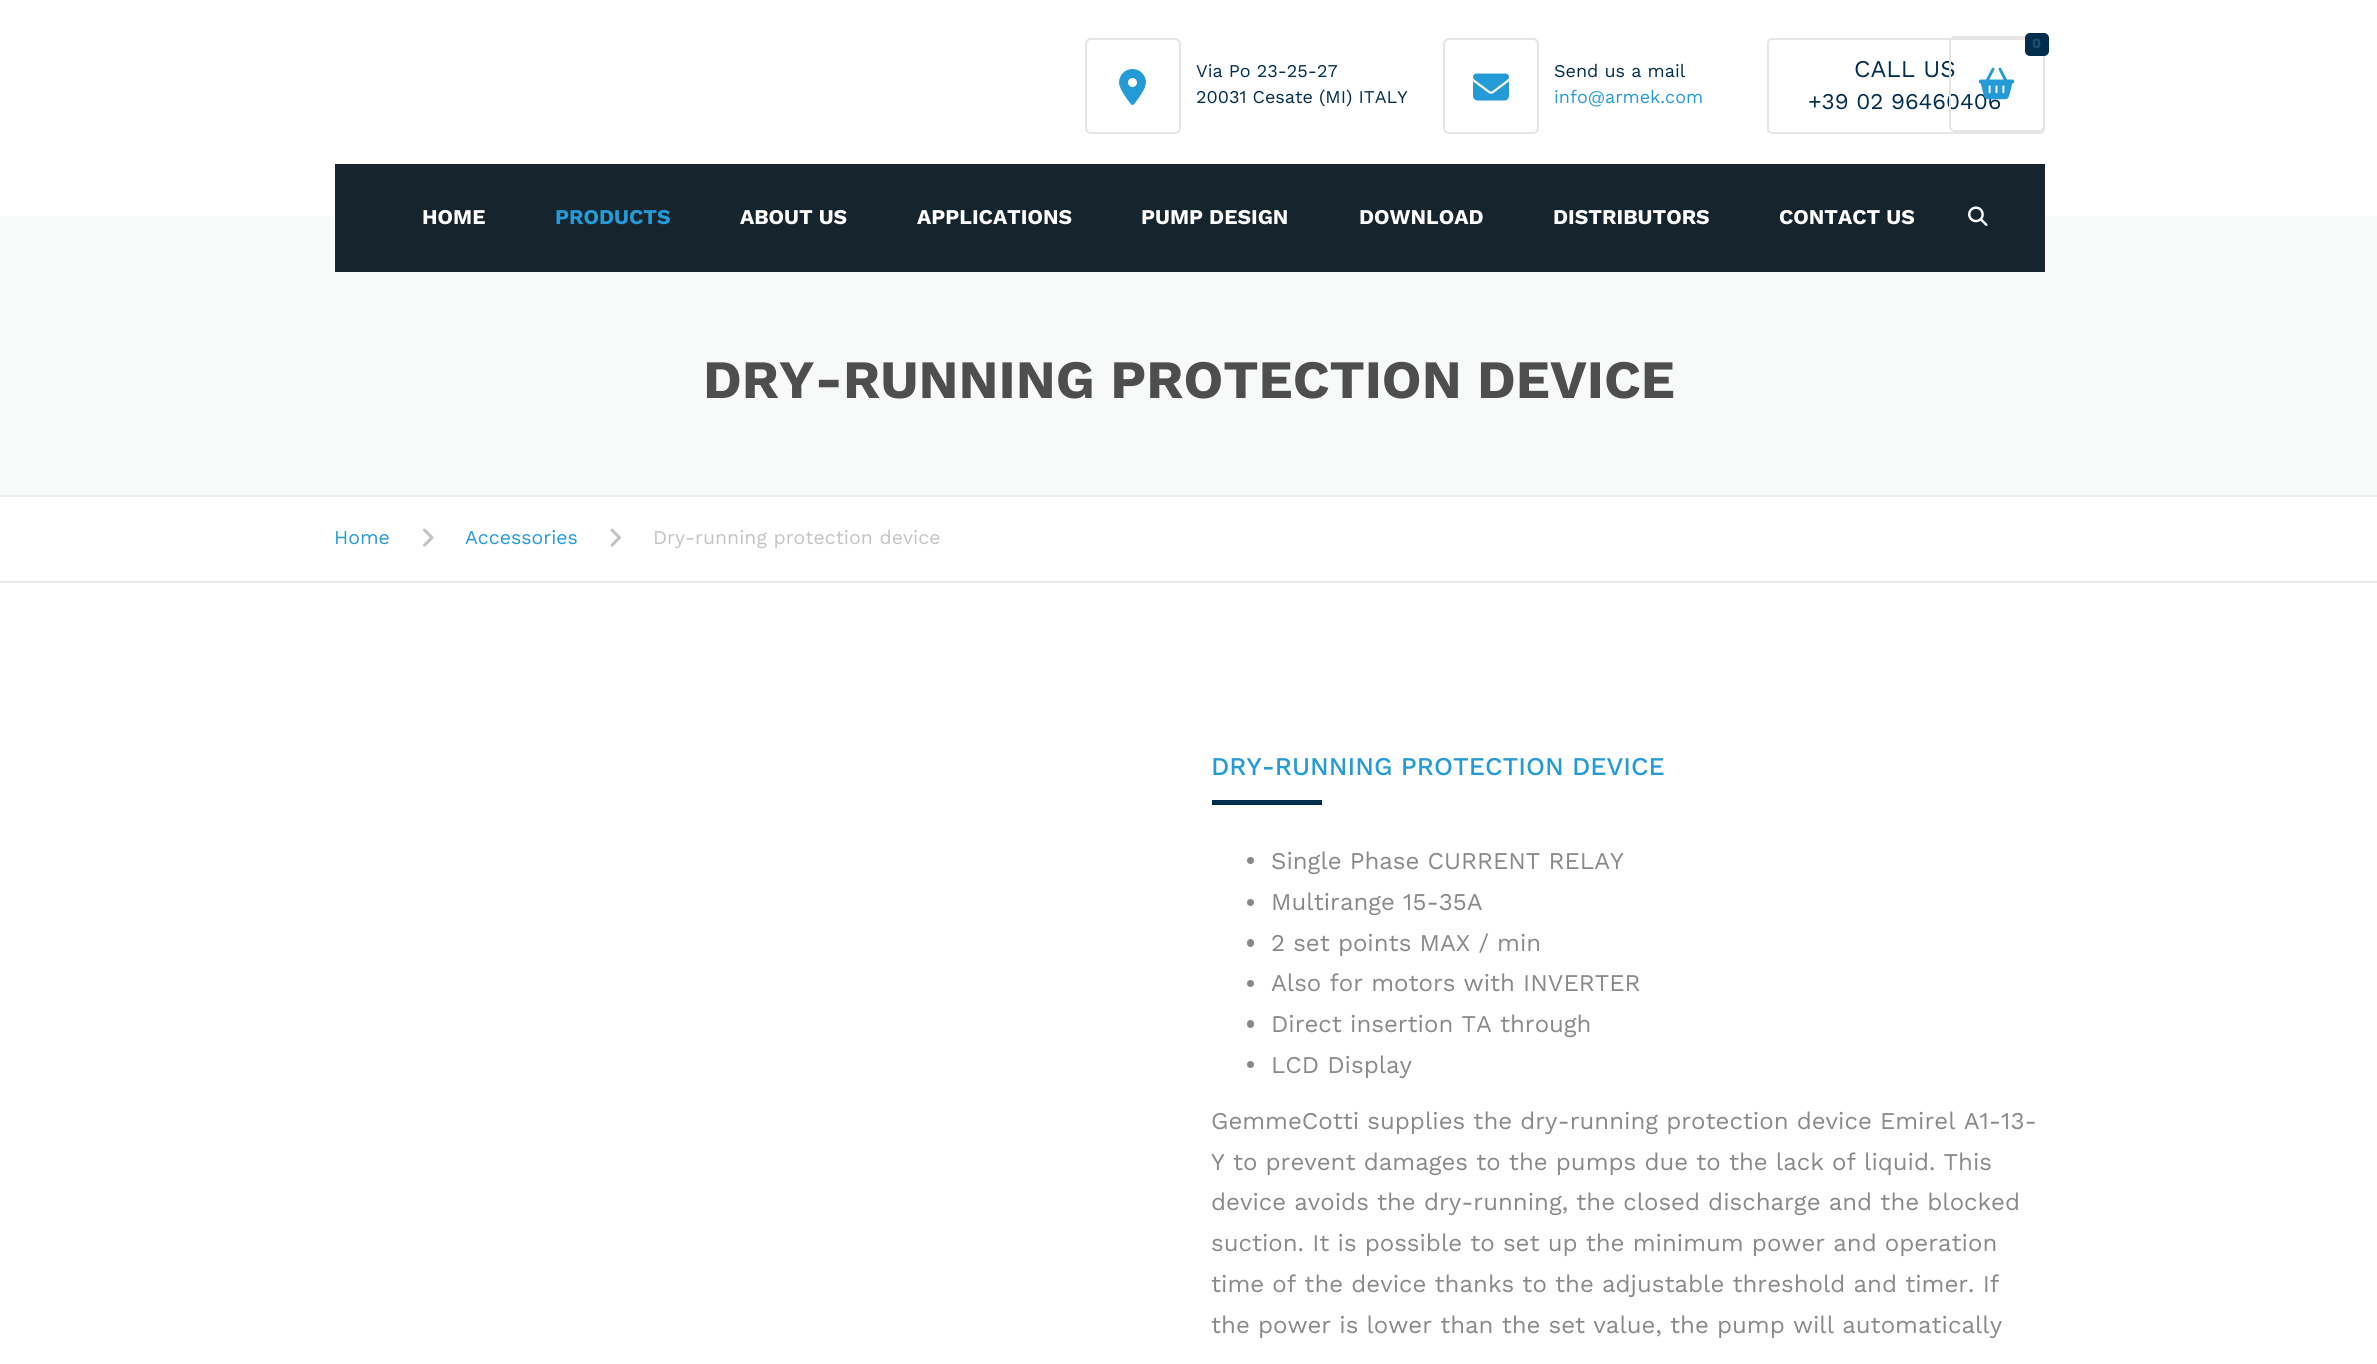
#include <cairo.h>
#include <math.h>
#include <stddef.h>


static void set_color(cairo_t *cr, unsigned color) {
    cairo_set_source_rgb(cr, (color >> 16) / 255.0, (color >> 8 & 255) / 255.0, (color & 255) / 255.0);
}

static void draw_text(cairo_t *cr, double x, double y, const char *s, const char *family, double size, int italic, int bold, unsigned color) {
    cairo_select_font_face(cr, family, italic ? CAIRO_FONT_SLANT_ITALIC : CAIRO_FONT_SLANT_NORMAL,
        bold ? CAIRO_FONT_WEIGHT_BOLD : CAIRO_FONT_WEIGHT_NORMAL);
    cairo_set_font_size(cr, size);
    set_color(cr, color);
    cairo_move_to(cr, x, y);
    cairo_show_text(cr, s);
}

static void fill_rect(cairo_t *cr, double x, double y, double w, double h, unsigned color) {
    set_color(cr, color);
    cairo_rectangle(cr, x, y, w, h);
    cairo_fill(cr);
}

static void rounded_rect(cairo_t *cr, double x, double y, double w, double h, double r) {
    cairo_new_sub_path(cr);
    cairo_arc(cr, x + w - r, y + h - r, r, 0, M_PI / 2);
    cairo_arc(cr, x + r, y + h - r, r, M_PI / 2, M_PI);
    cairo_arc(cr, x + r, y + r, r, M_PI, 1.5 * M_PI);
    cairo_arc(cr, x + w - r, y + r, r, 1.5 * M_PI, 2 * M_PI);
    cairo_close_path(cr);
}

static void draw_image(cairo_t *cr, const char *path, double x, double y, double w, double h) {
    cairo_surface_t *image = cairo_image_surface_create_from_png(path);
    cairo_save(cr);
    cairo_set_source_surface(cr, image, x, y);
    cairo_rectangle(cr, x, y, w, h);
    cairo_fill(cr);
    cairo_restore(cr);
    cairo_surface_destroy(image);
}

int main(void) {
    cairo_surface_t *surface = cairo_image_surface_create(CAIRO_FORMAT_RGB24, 2377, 1364);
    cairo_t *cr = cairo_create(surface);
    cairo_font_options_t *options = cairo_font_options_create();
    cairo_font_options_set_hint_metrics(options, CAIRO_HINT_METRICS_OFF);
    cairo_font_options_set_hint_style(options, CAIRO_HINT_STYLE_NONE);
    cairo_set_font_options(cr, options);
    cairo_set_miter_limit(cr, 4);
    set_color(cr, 0xFFFFFF);
    cairo_paint(cr);
    fill_rect(cr, 0, 216, 2377, 279, 0xF8F9F9);
    fill_rect(cr, 335, 164, 1710, 108, 0x16242E);
    rounded_rect(cr, 1768, 39, 276, 94, 4);
    set_color(cr, 0xE5E5E5);
    cairo_stroke(cr);
    draw_text(cr, 1854, 77, "CALL US", "Work Sans", 24, 0, 0, 0x022D4C);
    draw_text(cr, 1808, 109, "+39 02 96460406", "Work Sans", 22.5, 0, 0, 0x022D4C);
    rounded_rect(cr, 1950, 37, 94, 94, 5);
    set_color(cr, 0xE5E5E5);
    cairo_stroke(cr);
    set_color(cr, 0x022D4C);
    rounded_rect(cr, 2025, 33, 24, 23, 5);
    cairo_fill(cr);
    draw_text(cr, 2032, 48, "0", "Work Sans", 14, 0, 1, 0x1D4F70);
    draw_image(cr, "assets/img1.png", 1978, 67, 37, 33);
    draw_text(cr, 422, 224, "HOME", "Work Sans", 21, 0, 1, 0xFFFFFF);
    draw_text(cr, 555, 224, "PRODUCTS", "Work Sans", 21, 0, 1, 0x249AD7);
    draw_text(cr, 740, 224, "ABOUT US", "Work Sans", 21, 0, 1, 0xFFFFFF);
    draw_text(cr, 917, 224, "APPLICATIONS", "Work Sans", 21, 0, 1, 0xFFFFFF);
    draw_text(cr, 1141, 224, "PUMP DESIGN", "Work Sans", 21, 0, 1, 0xFFFFFF);
    draw_text(cr, 1359, 224, "DOWNLOAD", "Work Sans", 21, 0, 1, 0xFFFFFF);
    draw_text(cr, 1553, 224, "DISTRIBUTORS", "Work Sans", 21, 0, 1, 0xFFFFFF);
    draw_text(cr, 1779, 224, "CONTACT US", "Work Sans", 21, 0, 1, 0xFFFFFF);
    draw_image(cr, "assets/img2.png", 1968, 206, 20, 20);
    rounded_rect(cr, 1086, 39, 94, 94, 5);
    set_color(cr, 0xE5E5E5);
    cairo_stroke(cr);
    draw_image(cr, "assets/img3.png", 1119, 69, 27, 36);
    draw_text(cr, 1196, 77, "Via Po 23-25-27", "Work Sans", 18, 0, 0, 0x022D4C);
    draw_text(cr, 1196, 103, "20031 Cesate (MI) ITALY", "Work Sans", 18, 0, 0, 0x022D4C);
    rounded_rect(cr, 1444, 39, 94, 94, 5);
    set_color(cr, 0xE5E5E5);
    cairo_stroke(cr);
    draw_image(cr, "assets/img4.png", 1473, 73, 36, 28);
    draw_text(cr, 1554, 77, "Send us a mail", "Work Sans", 18, 0, 0, 0x022D4C);
    draw_text(cr, 1554, 103, "info@armek.com", "Work Sans", 18, 0, 0, 0x249AD7);
    fill_rect(cr, 0, 495, 2377, 2, 0xEEEEEE);
    draw_text(cr, 703, 398, "DRY-RUNNING PROTECTION DEVICE", "Work Sans", 54, 0, 1, 0x4E4E4E);
    fill_rect(cr, 0, 581, 2377, 2, 0xE7E7E7);
    draw_text(cr, 334, 544, "Home", "Work Sans", 19.5, 0, 0, 0x249AD7);
    draw_image(cr, "assets/img5.png", 423, 528, 11, 19);
    draw_text(cr, 465, 544, "Accessories", "Work Sans", 19.5, 0, 0, 0x249AD7);
    draw_image(cr, "assets/img6.png", 610, 528, 11, 19);
    draw_text(cr, 653, 544, "Dry-running protection device", "Work Sans", 19.5, 0, 0, 0xC3C3C3);
    draw_text(cr, 1211, 775, "DRY-RUNNING PROTECTION DEVICE", "Work Sans Medium", 25.5, 0, 0, 0x249AD7);
    fill_rect(cr, 1212, 800, 110, 5, 0x022D4C);
    set_color(cr, 0x898989);
    cairo_new_path(cr);
    cairo_arc(cr, 1250.5, 860.5, 3.5, 0, 2 * M_PI);
    cairo_fill(cr);
    draw_text(cr, 1271, 869, "Single Phase CURRENT RELAY", "Work Sans", 24, 0, 0, 0x898989);
    cairo_new_path(cr);
    cairo_arc(cr, 1250.5, 902.5, 3.5, 0, 2 * M_PI);
    cairo_fill(cr);
    draw_text(cr, 1271, 910, "Multirange 15-35A", "Work Sans", 24, 0, 0, 0x898989);
    rounded_rect(cr, 1247, 939, 7, 8, 3.5);
    cairo_fill(cr);
    draw_text(cr, 1271, 951, "2 set points MAX / min", "Work Sans", 24, 0, 0, 0x898989);
    cairo_new_path(cr);
    cairo_arc(cr, 1250.5, 983.5, 3.5, 0, 2 * M_PI);
    cairo_fill(cr);
    draw_text(cr, 1271, 991, "Also for motors with INVERTER", "Work Sans", 24, 0, 0, 0x898989);
    rounded_rect(cr, 1247, 1020, 7, 8, 3.5);
    cairo_fill(cr);
    draw_text(cr, 1271, 1032, "Direct insertion TA through", "Work Sans", 24, 0, 0, 0x898989);
    cairo_new_path(cr);
    cairo_arc(cr, 1250.5, 1064.5, 3.5, 0, 2 * M_PI);
    cairo_fill(cr);
    draw_text(cr, 1271, 1073, "LCD Display", "Work Sans", 24, 0, 0, 0x898989);
    draw_text(cr, 1211, 1129, "GemmeCotti supplies the dry-running protection device Emirel A1-13-", "Work Sans", 24, 0, 0, 0x898989);
    draw_text(cr, 1211, 1170, "Y to prevent damages to the pumps due to the lack of liquid. This", "Work Sans", 24, 0, 0, 0x898989);
    draw_text(cr, 1211, 1210, "device avoids the dry-running, the closed discharge and the blocked", "Work Sans", 24, 0, 0, 0x898989);
    draw_text(cr, 1211, 1251, "suction. It is possible to set up the minimum power and operation", "Work Sans", 24, 0, 0, 0x898989);
    draw_text(cr, 1211, 1292, "time of the device thanks to the adjustable threshold and timer. If", "Work Sans", 24, 0, 0, 0x898989);
    draw_text(cr, 1211, 1333, "the power is lower than the set value, the pump will automatically", "Work Sans", 24, 0, 0, 0x898989);
    cairo_surface_write_to_png(surface, "output.png");
    cairo_font_options_destroy(options);
    cairo_destroy(cr);
    cairo_surface_destroy(surface);
    return 0;
}
